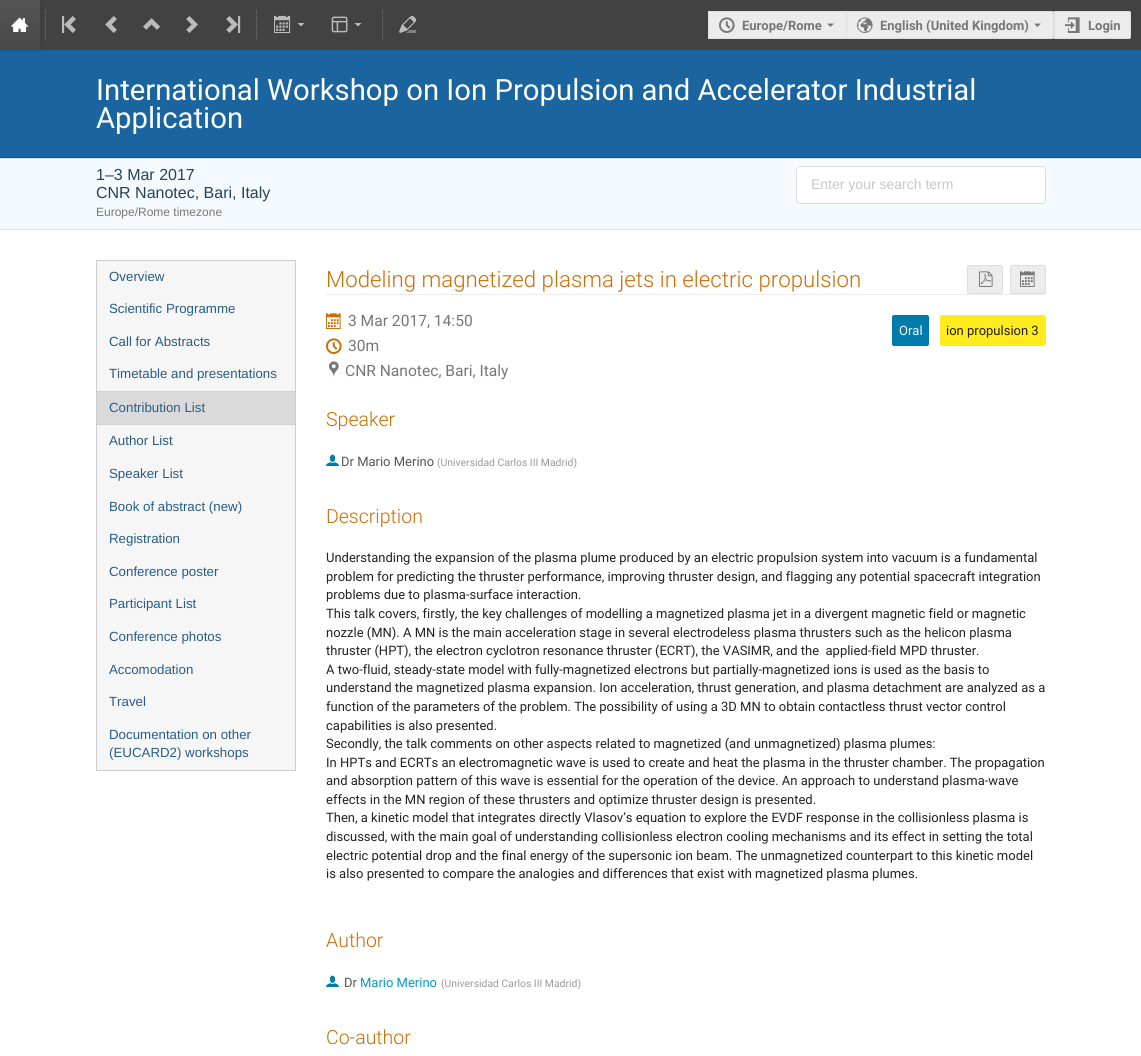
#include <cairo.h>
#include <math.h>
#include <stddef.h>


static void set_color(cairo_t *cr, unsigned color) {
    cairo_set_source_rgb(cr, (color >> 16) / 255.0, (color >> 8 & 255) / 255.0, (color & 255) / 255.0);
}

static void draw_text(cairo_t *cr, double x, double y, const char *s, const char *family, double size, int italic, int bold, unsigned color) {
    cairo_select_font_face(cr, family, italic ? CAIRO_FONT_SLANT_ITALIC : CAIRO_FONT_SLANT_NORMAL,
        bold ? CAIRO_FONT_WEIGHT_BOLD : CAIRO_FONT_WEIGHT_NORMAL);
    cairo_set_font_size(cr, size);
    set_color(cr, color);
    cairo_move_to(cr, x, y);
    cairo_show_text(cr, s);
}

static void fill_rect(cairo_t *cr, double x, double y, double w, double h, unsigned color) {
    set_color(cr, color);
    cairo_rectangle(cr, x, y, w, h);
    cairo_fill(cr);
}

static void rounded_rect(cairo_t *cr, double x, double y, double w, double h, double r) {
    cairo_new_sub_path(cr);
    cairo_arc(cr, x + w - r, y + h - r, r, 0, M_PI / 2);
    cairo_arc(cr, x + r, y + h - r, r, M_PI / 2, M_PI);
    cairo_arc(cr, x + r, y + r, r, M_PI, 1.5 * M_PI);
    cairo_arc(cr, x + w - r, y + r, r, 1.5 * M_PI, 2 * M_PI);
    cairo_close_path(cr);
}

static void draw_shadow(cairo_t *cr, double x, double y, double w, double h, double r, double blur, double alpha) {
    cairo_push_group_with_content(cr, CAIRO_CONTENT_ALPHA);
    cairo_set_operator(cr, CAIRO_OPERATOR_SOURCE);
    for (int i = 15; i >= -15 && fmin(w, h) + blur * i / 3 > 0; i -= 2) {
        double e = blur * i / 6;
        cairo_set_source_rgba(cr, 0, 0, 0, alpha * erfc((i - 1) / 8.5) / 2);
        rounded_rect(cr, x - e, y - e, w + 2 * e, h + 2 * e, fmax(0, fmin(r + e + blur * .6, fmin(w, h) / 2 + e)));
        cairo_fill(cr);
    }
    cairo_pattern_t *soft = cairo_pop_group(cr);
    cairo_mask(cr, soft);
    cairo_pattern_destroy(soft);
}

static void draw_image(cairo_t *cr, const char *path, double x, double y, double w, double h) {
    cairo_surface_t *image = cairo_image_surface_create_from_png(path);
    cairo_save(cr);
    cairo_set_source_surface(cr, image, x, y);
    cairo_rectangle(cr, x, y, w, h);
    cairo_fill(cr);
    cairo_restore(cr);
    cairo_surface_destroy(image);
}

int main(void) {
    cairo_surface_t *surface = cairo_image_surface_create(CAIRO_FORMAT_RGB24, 1141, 1056);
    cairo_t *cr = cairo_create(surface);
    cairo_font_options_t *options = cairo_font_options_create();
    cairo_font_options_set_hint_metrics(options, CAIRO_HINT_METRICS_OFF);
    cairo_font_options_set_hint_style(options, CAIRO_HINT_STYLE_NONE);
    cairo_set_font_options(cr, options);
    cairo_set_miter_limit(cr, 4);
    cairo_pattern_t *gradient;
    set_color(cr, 0xFFFFFF);
    cairo_paint(cr);
    fill_rect(cr, 40, 0, 1101, 50, 0x424242);
    fill_rect(cr, 0, 50, 1141, 107, 0x1A64A0);
    set_color(cr, 0x141414);
    draw_shadow(cr, 1, 1, 40, 50, 0, 2, 0.1);
    gradient = cairo_pattern_create_linear(20, 0, 20, 50);
    cairo_pattern_add_color_stop_rgba(gradient, 0, 0.333, 0.333, 0.333, 1);
    cairo_pattern_add_color_stop_rgba(gradient, 1, 0.282, 0.282, 0.282, 1);
    cairo_set_source(cr, gradient);
    cairo_pattern_destroy(gradient);
    cairo_rectangle(cr, 0, 0, 40, 50);
    cairo_fill(cr);
    draw_image(cr, "assets/img1.png", 11, 17, 18, 15);
    cairo_new_path(cr);
    cairo_move_to(cr, 45.5, 10);
    cairo_line_to(cr, 45.5, 40);
    set_color(cr, 0x777777);
    cairo_set_line_width(cr, 1);
    cairo_set_dash(cr, (double[]){1, 1}, 2, 0);
    cairo_stroke(cr);
    draw_image(cr, "assets/img2.png", 62, 15, 14, 19);
    draw_image(cr, "assets/img3.png", 105, 16, 12, 17);
    draw_image(cr, "assets/img4.png", 143, 18, 17, 12);
    draw_image(cr, "assets/img5.png", 186, 16, 12, 17);
    draw_image(cr, "assets/img6.png", 226, 15, 15, 19);
    cairo_new_path(cr);
    cairo_move_to(cr, 256.5, 10);
    cairo_line_to(cr, 256.5, 40);
    cairo_stroke(cr);
    draw_image(cr, "assets/img7.png", 274, 15, 17, 19);
    set_color(cr, 0xBBBBBB);
    cairo_new_path(cr);
    cairo_move_to(cr, 297.5, 23);
    cairo_line_to(cr, 301, 26.5);
    cairo_line_to(cr, 304.5, 23);
    cairo_close_path(cr);
    cairo_fill(cr);
    draw_image(cr, "assets/img8.png", 331, 16, 17, 17);
    cairo_new_path(cr);
    cairo_move_to(cr, 354.5, 23);
    cairo_line_to(cr, 358, 26.5);
    cairo_line_to(cr, 361.5, 23);
    cairo_close_path(cr);
    cairo_fill(cr);
    cairo_new_path(cr);
    cairo_move_to(cr, 382.5, 10);
    cairo_line_to(cr, 382.5, 40);
    set_color(cr, 0x777777);
    cairo_stroke(cr);
    draw_image(cr, "assets/img9.png", 399, 16, 18, 17);
    fill_rect(cr, 709, 12, 137, 26, 0xECECEC);
    fill_rect(cr, 708, 11, 138, 1, 0xDFDFDF);
    fill_rect(cr, 708, 38, 138, 1, 0xDFDFDF);
    fill_rect(cr, 708, 11, 1, 28, 0xDFDFDF);
    draw_image(cr, "assets/img10.png", 719, 17, 16, 16);
    draw_text(cr, 742, 30, "Europe/Rome", "Roboto", 13, 0, 1, 0x777777);
    cairo_new_path(cr);
    cairo_move_to(cr, 827, 23.5);
    cairo_line_to(cr, 830.5, 27);
    cairo_line_to(cr, 834, 23.5);
    cairo_close_path(cr);
    cairo_fill(cr);
    set_color(cr, 0xECECEC);
    cairo_new_path(cr);
    cairo_move_to(cr, 846.5, 11.5);
    cairo_line_to(cr, 1052, 11.5);
    cairo_curve_to(cr, 1053, 11.5, 1053.5, 12, 1053.5, 13);
    cairo_line_to(cr, 1053.5, 37);
    cairo_curve_to(cr, 1053.5, 38, 1053, 38.5, 1052, 38.5);
    cairo_line_to(cr, 846.5, 38.5);
    cairo_close_path(cr);
    cairo_fill_preserve(cr);
    set_color(cr, 0xDFDFDF);
    cairo_set_dash(cr, NULL, 0, 0);
    cairo_stroke(cr);
    draw_image(cr, "assets/img11.png", 857, 17, 16, 16);
    draw_text(cr, 880, 30, "English (United Kingdom)", "Roboto", 13, 0, 1, 0x777777);
    cairo_new_path(cr);
    cairo_move_to(cr, 1034, 23.5);
    cairo_line_to(cr, 1037.5, 27);
    cairo_line_to(cr, 1041, 23.5);
    cairo_close_path(cr);
    cairo_fill(cr);
    set_color(cr, 0xECECEC);
    cairo_new_path(cr);
    cairo_move_to(cr, 1054.5, 11.5);
    cairo_line_to(cr, 1129, 11.5);
    cairo_curve_to(cr, 1130, 11.5, 1130.5, 12, 1130.5, 13);
    cairo_line_to(cr, 1130.5, 37);
    cairo_curve_to(cr, 1130.5, 38, 1130, 38.5, 1129, 38.5);
    cairo_line_to(cr, 1054.5, 38.5);
    cairo_close_path(cr);
    cairo_fill_preserve(cr);
    set_color(cr, 0xDFDFDF);
    cairo_stroke(cr);
    draw_image(cr, "assets/img12.png", 1065, 17, 15, 16);
    draw_text(cr, 1088, 30, "Login", "Roboto", 13, 0, 1, 0x777777);
    fill_rect(cr, 0, 157, 1141, 1, 0x0F4C80);
    draw_text(cr, 96, 100, "International Workshop on Ion Propulsion and Accelerator Industrial", "Roboto", 29.3, 0, 0, 0xFFFFFF);
    draw_text(cr, 96, 128, "Application", "Roboto", 29.3, 0, 0, 0xFFFFFF);
    fill_rect(cr, 0, 159, 1141, 70, 0xF5FAFF);
    fill_rect(cr, 0, 158, 1141, 1, 0xD5E4F1);
    fill_rect(cr, 0, 229, 1141, 1, 0xD5E4F1);
    draw_text(cr, 96, 180, "1–3 Mar 2017", "Liberation Sans", 16, 0, 0, 0x24425A);
    draw_text(cr, 96, 198, "CNR Nanotec, Bari, Italy", "Liberation Sans", 16, 0, 0, 0x24425A);
    draw_text(cr, 96, 216, "Europe/Rome timezone", "Liberation Sans", 12, 0, 0, 0x777777);
    set_color(cr, 0xFFFFFF);
    rounded_rect(cr, 796, 166, 250, 38, 4);
    cairo_fill(cr);
    rounded_rect(cr, 796.5, 166.5, 249, 37, 3.5);
    cairo_set_source_rgba(cr, 0.133, 0.141, 0.149, 0.15);
    cairo_stroke(cr);
    draw_text(cr, 811, 189, "Enter your search term", "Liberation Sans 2", 14, 0, 0, 0xC7C7C7);
    set_color(cr, 0xF6F6F6);
    cairo_rectangle(cr, 96.5, 260.5, 199, 510);
    cairo_fill_preserve(cr);
    set_color(cr, 0xCCCCCC);
    cairo_stroke(cr);
    draw_text(cr, 109, 281, "Overview", "Liberation Sans 2", 13.3, 0, 0, 0x275C86);
    draw_text(cr, 109, 313, "Scientific Programme", "Liberation Sans 2", 13.3, 0, 0, 0x275C86);
    draw_text(cr, 109, 346, "Call for Abstracts", "Liberation Sans 2", 13.3, 0, 0, 0x275C86);
    draw_text(cr, 109, 378, "Timetable and presentations", "Liberation Sans 2", 13.3, 0, 0, 0x275C86);
    fill_rect(cr, 97, 392, 198, 32, 0xDADADA);
    fill_rect(cr, 97, 391, 198, 1, 0xD0D0D0);
    fill_rect(cr, 97, 424, 198, 1, 0xD0D0D0);
    draw_text(cr, 109, 412, "Contribution List", "Liberation Sans 2", 13.3, 0, 0, 0x275C86);
    draw_text(cr, 109, 445, "Author List", "Liberation Sans 2", 13.3, 0, 0, 0x275C86);
    draw_text(cr, 109, 478, "Speaker List", "Liberation Sans 2", 13.3, 0, 0, 0x275C86);
    draw_text(cr, 109, 511, "Book of abstract (new)", "Liberation Sans 2", 13.3, 0, 0, 0x275C86);
    draw_text(cr, 109, 543, "Registration", "Liberation Sans 2", 13.3, 0, 0, 0x275C86);
    draw_text(cr, 109, 576, "Conference poster", "Liberation Sans 2", 13.3, 0, 0, 0x275C86);
    draw_text(cr, 109, 608, "Participant List", "Liberation Sans 2", 13.3, 0, 0, 0x275C86);
    draw_text(cr, 109, 641, "Conference photos", "Liberation Sans 2", 13.3, 0, 0, 0x275C86);
    draw_text(cr, 109, 674, "Accomodation", "Liberation Sans 2", 13.3, 0, 0, 0x275C86);
    draw_text(cr, 109, 706, "Travel", "Liberation Sans 2", 13.3, 0, 0, 0x275C86);
    draw_text(cr, 109, 739, "Documentation on other", "Liberation Sans 2", 13.3, 0, 0, 0x275C86);
    draw_text(cr, 109, 757, "(EUCARD2) workshops", "Liberation Sans 2", 13.3, 0, 0, 0x275C86);
    fill_rect(cr, 326, 294, 720, 1, 0xEBEBEB);
    draw_text(cr, 326, 287, "Modeling magnetized plasma jets in electric propulsion", "Roboto Light", 22.25, 0, 0, 0xCB6D04);
    set_color(cr, 0xECECEC);
    rounded_rect(cr, 967.5, 265.5, 35, 28, 1.5);
    cairo_fill_preserve(cr);
    set_color(cr, 0xDFDFDF);
    cairo_stroke(cr);
    draw_image(cr, "assets/img13.png", 979, 271, 14, 16);
    set_color(cr, 0xECECEC);
    rounded_rect(cr, 1010.5, 265.5, 35, 28, 1.5);
    cairo_fill_preserve(cr);
    set_color(cr, 0xDFDFDF);
    cairo_stroke(cr);
    draw_image(cr, "assets/img14.png", 1020, 271, 15, 16);
    draw_image(cr, "assets/img15.png", 326, 313, 15, 16);
    draw_text(cr, 348, 326, "3 Mar 2017, 14:50", "Roboto", 15.6, 0, 0, 0x777777);
    draw_image(cr, "assets/img16.png", 326, 338, 16, 16);
    draw_text(cr, 348, 351, "30m", "Roboto", 15.6, 0, 0, 0x777777);
    draw_image(cr, "assets/img17.png", 328, 361, 11, 16);
    draw_text(cr, 345, 376, "CNR Nanotec, Bari, Italy", "Roboto", 15.6, 0, 0, 0x777777);
    set_color(cr, 0x007CAC);
    rounded_rect(cr, 892, 315, 37, 31, 2);
    cairo_fill(cr);
    draw_text(cr, 899, 335, "Oral", "Roboto", 13, 0, 0, 0xF9F9F9);
    set_color(cr, 0xFFEC1F);
    rounded_rect(cr, 940, 315, 106, 31, 2);
    cairo_fill(cr);
    draw_text(cr, 946, 335, "ion propulsion 3", "Roboto", 13, 0, 0, 0x1F1D04);
    draw_text(cr, 326, 426, "Speaker", "Roboto Light", 19.5, 0, 0, 0xCB6D04);
    draw_image(cr, "assets/img18.png", 326, 454, 13, 12);
    draw_text(cr, 341, 466, "Dr Mario Merino", "Roboto", 13, 0, 0, 0x555555);
    draw_text(cr, 437, 466, "(Universidad Carlos III Madrid)", "Roboto", 10.4, 0, 0, 0x999999);
    draw_text(cr, 326, 523, "Description", "Roboto Light", 19.5, 0, 0, 0xCB6D04);
    draw_text(cr, 326, 562, "Understanding the expansion of the plasma plume produced by an electric propulsion system into vacuum is a fundamental", "Roboto", 13, 0, 0, 0x212121);
    draw_text(cr, 326, 581, "problem for predicting the thruster performance, improving thruster design, and flagging any potential spacecraft integration", "Roboto", 13, 0, 0, 0x212121);
    draw_text(cr, 326, 599, "problems due to plasma-surface interaction.", "Roboto", 13, 0, 0, 0x212121);
    draw_text(cr, 326, 618, "This talk covers, firstly, the key challenges of modelling a magnetized plasma jet in a divergent magnetic field or magnetic", "Roboto", 13, 0, 0, 0x212121);
    draw_text(cr, 326, 637, "nozzle (MN). A MN is the main acceleration stage in several electrodeless plasma thrusters such as the helicon plasma", "Roboto", 13, 0, 0, 0x212121);
    draw_text(cr, 326, 655, "thruster (HPT), the electron cyclotron resonance thruster (ECRT), the VASIMR, and the  applied-field MPD thruster.", "Roboto", 13, 0, 0, 0x212121);
    draw_text(cr, 326, 674, "A two-fluid, steady-state model with fully-magnetized electrons but partially-magnetized ions is used as the basis to", "Roboto", 13, 0, 0, 0x212121);
    draw_text(cr, 326, 692, "understand the magnetized plasma expansion. Ion acceleration, thrust generation, and plasma detachment are analyzed as a", "Roboto", 13, 0, 0, 0x212121);
    draw_text(cr, 326, 711, "function of the parameters of the problem. The possibility of using a 3D MN to obtain contactless thrust vector control", "Roboto", 13, 0, 0, 0x212121);
    draw_text(cr, 326, 730, "capabilities is also presented.", "Roboto", 13, 0, 0, 0x212121);
    draw_text(cr, 326, 748, "Secondly, the talk comments on other aspects related to magnetized (and unmagnetized) plasma plumes:", "Roboto", 13, 0, 0, 0x212121);
    draw_text(cr, 326, 767, "In HPTs and ECRTs an electromagnetic wave is used to create and heat the plasma in the thruster chamber. The propagation", "Roboto", 13, 0, 0, 0x212121);
    draw_text(cr, 326, 785, "and absorption pattern of this wave is essential for the operation of the device. An approach to understand plasma-wave", "Roboto", 13, 0, 0, 0x212121);
    draw_text(cr, 326, 804, "effects in the MN region of these thrusters and optimize thruster design is presented.", "Roboto", 13, 0, 0, 0x212121);
    draw_text(cr, 326, 822, "Then, a kinetic model that integrates directly Vlasov’s equation to explore the EVDF response in the collisionless plasma is", "Roboto", 13, 0, 0, 0x212121);
    draw_text(cr, 326, 841, "discussed, with the main goal of understanding collisionless electron cooling mechanisms and its effect in setting the total", "Roboto", 13, 0, 0, 0x212121);
    draw_text(cr, 326, 860, "electric potential drop and the final energy of the supersonic ion beam. The unmagnetized counterpart to this kinetic model", "Roboto", 13, 0, 0, 0x212121);
    draw_text(cr, 326, 878, "is also presented to compare the analogies and differences that exist with magnetized plasma plumes.", "Roboto", 13, 0, 0, 0x212121);
    draw_text(cr, 326, 947, "Author", "Roboto Light", 19.5, 0, 0, 0xCB6D04);
    draw_image(cr, "assets/img18.png", 326, 975, 13, 12);
    draw_text(cr, 344, 987, "Dr", "Roboto", 13, 0, 0, 0x555555);
    draw_text(cr, 360, 987, "Mario Merino", "Roboto", 13, 0, 0, 0x0099CC);
    draw_text(cr, 441, 987, "(Universidad Carlos III Madrid)", "Roboto", 10.4, 0, 0, 0x999999);
    draw_text(cr, 326, 1044, "Co-author", "Roboto Light", 19.5, 0, 0, 0xCB6D04);
    cairo_surface_write_to_png(surface, "output.png");
    cairo_font_options_destroy(options);
    cairo_destroy(cr);
    cairo_surface_destroy(surface);
    return 0;
}
